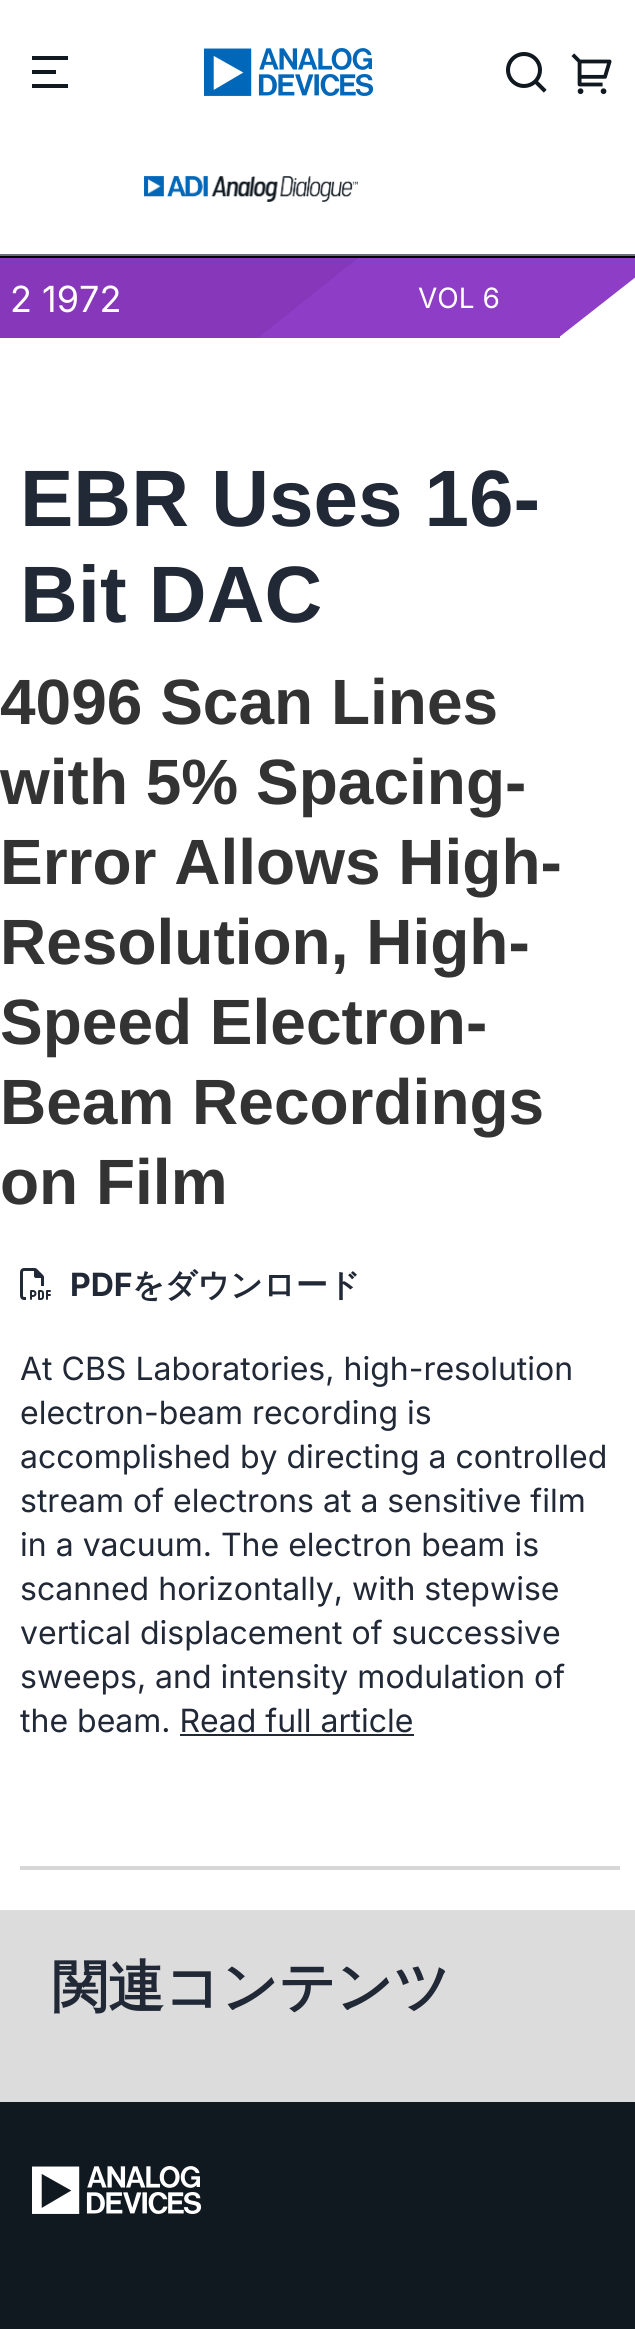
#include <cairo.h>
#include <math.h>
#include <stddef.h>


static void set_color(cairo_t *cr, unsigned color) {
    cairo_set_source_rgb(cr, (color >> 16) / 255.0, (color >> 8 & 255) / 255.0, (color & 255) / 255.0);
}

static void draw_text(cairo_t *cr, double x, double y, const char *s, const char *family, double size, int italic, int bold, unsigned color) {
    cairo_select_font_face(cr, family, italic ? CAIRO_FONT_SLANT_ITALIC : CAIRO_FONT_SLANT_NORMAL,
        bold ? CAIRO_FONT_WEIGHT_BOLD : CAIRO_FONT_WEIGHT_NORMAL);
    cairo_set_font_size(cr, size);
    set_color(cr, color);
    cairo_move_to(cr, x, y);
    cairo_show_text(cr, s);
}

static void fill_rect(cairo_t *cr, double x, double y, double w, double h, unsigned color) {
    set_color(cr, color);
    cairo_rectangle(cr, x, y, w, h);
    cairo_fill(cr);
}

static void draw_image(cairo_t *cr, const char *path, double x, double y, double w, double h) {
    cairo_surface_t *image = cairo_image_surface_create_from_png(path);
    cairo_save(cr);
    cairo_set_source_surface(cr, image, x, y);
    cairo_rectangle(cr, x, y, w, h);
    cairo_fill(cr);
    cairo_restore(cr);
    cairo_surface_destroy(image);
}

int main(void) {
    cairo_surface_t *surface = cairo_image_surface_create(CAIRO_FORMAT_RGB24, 635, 2329);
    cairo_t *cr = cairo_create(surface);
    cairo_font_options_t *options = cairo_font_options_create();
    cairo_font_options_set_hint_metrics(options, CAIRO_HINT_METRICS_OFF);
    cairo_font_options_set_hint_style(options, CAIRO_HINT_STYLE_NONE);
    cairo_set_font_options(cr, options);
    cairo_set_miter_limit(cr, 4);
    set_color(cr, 0xFFFFFF);
    cairo_paint(cr);
    set_color(cr, 0x101820);
    cairo_new_path(cr);
    cairo_move_to(cr, 32, 56);
    cairo_line_to(cr, 68, 56);
    cairo_line_to(cr, 68, 60);
    cairo_line_to(cr, 32, 60);
    cairo_close_path(cr);
    cairo_move_to(cr, 32, 70);
    cairo_line_to(cr, 56, 70);
    cairo_line_to(cr, 56, 74);
    cairo_line_to(cr, 32, 74);
    cairo_close_path(cr);
    cairo_move_to(cr, 32, 84);
    cairo_line_to(cr, 68, 84);
    cairo_line_to(cr, 68, 88);
    cairo_line_to(cr, 32, 88);
    cairo_close_path(cr);
    cairo_fill(cr);
    draw_image(cr, "assets/img1.png", 204, 48, 170, 48);
    draw_image(cr, "assets/img2.png", 506, 52, 41, 41);
    draw_image(cr, "assets/img3.png", 571, 53, 41, 42);
    fill_rect(cr, 0, 256, 635, 2, 0x000000);
    draw_image(cr, "assets/img4.png", 144, 176, 214, 26);
    fill_rect(cr, 0, 254, 635, 2, 0x686C7D);
    fill_rect(cr, 0, 258, 262, 80, 0x8637BA);
    draw_text(cr, 10, 312, "2 1972", "Inter", 36, 0, 0, 0xFFFFFF);
    set_color(cr, 0x8637BA);
    cairo_new_path(cr);
    cairo_move_to(cr, 262, 338);
    cairo_line_to(cr, 262, 258);
    cairo_line_to(cr, 362, 258);
    cairo_close_path(cr);
    cairo_fill(cr);
    set_color(cr, 0x8E3DC7);
    cairo_new_path(cr);
    cairo_move_to(cr, 358, 258);
    cairo_line_to(cr, 358, 338);
    cairo_line_to(cr, 258, 338);
    cairo_close_path(cr);
    cairo_fill(cr);
    fill_rect(cr, 358, 258, 202, 80, 0x8E3DC7);
    draw_text(cr, 418, 308, "VOL 6", "Inter", 28, 0, 0, 0xFFFFFF);
    set_color(cr, 0x8E3DC7);
    cairo_new_path(cr);
    cairo_move_to(cr, 558, 338);
    cairo_line_to(cr, 558, 258);
    cairo_line_to(cr, 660, 258);
    cairo_close_path(cr);
    cairo_fill(cr);
    draw_text(cr, 20, 526, "EBR Uses 16-", "Liberation Sans", 80, 0, 1, 0x212836);
    draw_text(cr, 20, 622, "Bit DAC", "Liberation Sans", 80, 0, 1, 0x212836);
    draw_text(cr, 0, 724, "4096 Scan Lines", "Liberation Sans", 64, 0, 1, 0x333333);
    draw_text(cr, 0, 804, "with 5% Spacing-", "Liberation Sans", 64, 0, 1, 0x333333);
    draw_text(cr, 0, 884, "Error Allows High-", "Liberation Sans", 64, 0, 1, 0x333333);
    draw_text(cr, 0, 964, "Resolution, High-", "Liberation Sans", 64, 0, 1, 0x333333);
    draw_text(cr, 0, 1044, "Speed Electron-", "Liberation Sans", 64, 0, 1, 0x333333);
    draw_text(cr, 0, 1124, "Beam Recordings", "Liberation Sans", 64, 0, 1, 0x333333);
    draw_text(cr, 0, 1204, "on Film", "Liberation Sans", 64, 0, 1, 0x333333);
    draw_image(cr, "assets/img5.png", 20, 1268, 31, 32);
    draw_text(cr, 70, 1296, "PDF", "Inter", 32, 0, 1, 0x212836);
    draw_text(cr, 132, 1296, "をダウンロード", "WenQuanYi Zen Hei", 32, 0, 1, 0x212836);
    draw_text(cr, 20, 1380, "At CBS Laboratories, high-resolution", "Inter", 32, 0, 0, 0x212836);
    draw_text(cr, 20, 1424, "electron-beam recording is", "Inter", 32, 0, 0, 0x212836);
    draw_text(cr, 20, 1468, "accomplished by directing a controlled", "Inter", 32, 0, 0, 0x212836);
    draw_text(cr, 20, 1512, "stream of electrons at a sensitive film", "Inter", 32, 0, 0, 0x212836);
    draw_text(cr, 20, 1556, "in a vacuum. The electron beam is", "Inter", 32, 0, 0, 0x212836);
    draw_text(cr, 20, 1600, "scanned horizontally, with stepwise", "Inter", 32, 0, 0, 0x212836);
    draw_text(cr, 20, 1644, "vertical displacement of successive", "Inter", 32, 0, 0, 0x212836);
    draw_text(cr, 20, 1688, "sweeps, and intensity modulation of", "Inter", 32, 0, 0, 0x212836);
    draw_text(cr, 20, 1732, "the beam. Read full article", "Inter", 32, 0, 0, 0x212836);
    fill_rect(cr, 180, 1734, 234, 2, 0x212836);
    fill_rect(cr, 20, 1866, 600, 4, 0xD7D7D7);
    fill_rect(cr, 0, 1910, 635, 192, 0xDCDCDC);
    draw_text(cr, 52, 2006, "関連コンテンツ", "WenQuanYi Zen Hei", 56, 0, 1, 0x212836);
    fill_rect(cr, 0, 2102, 635, 227, 0x101820);
    draw_image(cr, "assets/img6.png", 32, 2166, 170, 48);
    cairo_surface_write_to_png(surface, "output.png");
    cairo_font_options_destroy(options);
    cairo_destroy(cr);
    cairo_surface_destroy(surface);
    return 0;
}
